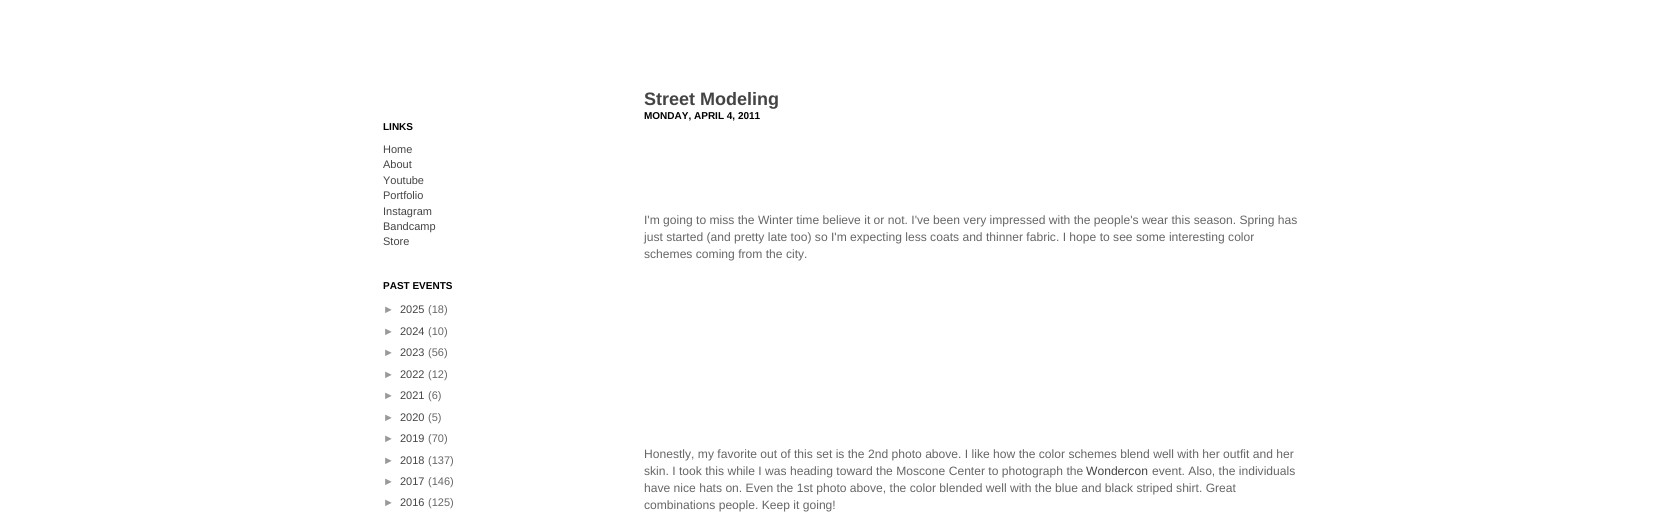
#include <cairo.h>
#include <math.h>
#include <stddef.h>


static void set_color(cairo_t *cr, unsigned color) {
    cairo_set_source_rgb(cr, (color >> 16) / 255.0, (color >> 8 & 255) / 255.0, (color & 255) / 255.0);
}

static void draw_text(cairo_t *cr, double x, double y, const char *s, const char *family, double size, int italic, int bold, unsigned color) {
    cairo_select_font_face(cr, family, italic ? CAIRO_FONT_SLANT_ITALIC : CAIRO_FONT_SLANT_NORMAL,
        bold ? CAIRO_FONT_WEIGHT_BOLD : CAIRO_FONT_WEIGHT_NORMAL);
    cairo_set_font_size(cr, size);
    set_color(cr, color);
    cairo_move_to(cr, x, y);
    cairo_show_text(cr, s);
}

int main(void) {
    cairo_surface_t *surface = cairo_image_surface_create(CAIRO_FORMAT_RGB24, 1666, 523);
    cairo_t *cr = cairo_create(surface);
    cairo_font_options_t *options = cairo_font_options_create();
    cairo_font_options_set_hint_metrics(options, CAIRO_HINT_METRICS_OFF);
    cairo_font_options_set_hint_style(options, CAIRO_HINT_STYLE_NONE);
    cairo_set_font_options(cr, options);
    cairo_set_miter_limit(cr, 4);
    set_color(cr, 0xFFFFFF);
    cairo_paint(cr);
    draw_text(cr, 383, 130, "LINKS", "Liberation Sans", 10, 0, 1, 0x000000);
    draw_text(cr, 383, 153, "Home", "Liberation Sans", 11, 0, 0, 0x444444);
    draw_text(cr, 383, 168, "About", "Liberation Sans", 11, 0, 0, 0x444444);
    draw_text(cr, 383, 184, "Youtube", "Liberation Sans", 11, 0, 0, 0x444444);
    draw_text(cr, 383, 199, "Portfolio", "Liberation Sans", 11, 0, 0, 0x444444);
    draw_text(cr, 383, 215, "Instagram", "Liberation Sans", 11, 0, 0, 0x444444);
    draw_text(cr, 383, 230, "Bandcamp", "Liberation Sans", 11, 0, 0, 0x444444);
    draw_text(cr, 383, 245, "Store", "Liberation Sans", 11, 0, 0, 0x444444);
    draw_text(cr, 383, 289, "PAST EVENTS", "Liberation Sans", 10, 0, 1, 0x000000);
    draw_text(cr, 383, 313, "►", "Liberation Sans", 11, 0, 0, 0x999999);
    draw_text(cr, 400, 313, "2025", "Liberation Sans", 11, 0, 0, 0x444444);
    draw_text(cr, 428, 313, "(18)", "Liberation Sans", 11, 0, 0, 0x666666);
    draw_text(cr, 383, 335, "►", "Liberation Sans", 11, 0, 0, 0x999999);
    draw_text(cr, 400, 335, "2024", "Liberation Sans", 11, 0, 0, 0x444444);
    draw_text(cr, 428, 335, "(10)", "Liberation Sans", 11, 0, 0, 0x666666);
    draw_text(cr, 383, 356, "►", "Liberation Sans", 11, 0, 0, 0x999999);
    draw_text(cr, 400, 356, "2023", "Liberation Sans", 11, 0, 0, 0x444444);
    draw_text(cr, 428, 356, "(56)", "Liberation Sans", 11, 0, 0, 0x666666);
    draw_text(cr, 383, 378, "►", "Liberation Sans", 11, 0, 0, 0x999999);
    draw_text(cr, 400, 378, "2022", "Liberation Sans", 11, 0, 0, 0x444444);
    draw_text(cr, 428, 378, "(12)", "Liberation Sans", 11, 0, 0, 0x666666);
    draw_text(cr, 383, 399, "►", "Liberation Sans", 11, 0, 0, 0x999999);
    draw_text(cr, 400, 399, "2021", "Liberation Sans", 11, 0, 0, 0x444444);
    draw_text(cr, 428, 399, "(6)", "Liberation Sans", 11, 0, 0, 0x666666);
    draw_text(cr, 383, 421, "►", "Liberation Sans", 11, 0, 0, 0x999999);
    draw_text(cr, 400, 421, "2020", "Liberation Sans", 11, 0, 0, 0x444444);
    draw_text(cr, 428, 421, "(5)", "Liberation Sans", 11, 0, 0, 0x666666);
    draw_text(cr, 383, 442, "►", "Liberation Sans", 11, 0, 0, 0x999999);
    draw_text(cr, 400, 442, "2019", "Liberation Sans", 11, 0, 0, 0x444444);
    draw_text(cr, 428, 442, "(70)", "Liberation Sans", 11, 0, 0, 0x666666);
    draw_text(cr, 383, 464, "►", "Liberation Sans", 11, 0, 0, 0x999999);
    draw_text(cr, 400, 464, "2018", "Liberation Sans", 11, 0, 0, 0x444444);
    draw_text(cr, 428, 464, "(137)", "Liberation Sans", 11, 0, 0, 0x666666);
    draw_text(cr, 383, 485, "►", "Liberation Sans", 11, 0, 0, 0x999999);
    draw_text(cr, 400, 485, "2017", "Liberation Sans", 11, 0, 0, 0x444444);
    draw_text(cr, 428, 485, "(146)", "Liberation Sans", 11, 0, 0, 0x666666);
    draw_text(cr, 383, 506, "►", "Liberation Sans", 11, 0, 0, 0x999999);
    draw_text(cr, 400, 506, "2016", "Liberation Sans", 11, 0, 0, 0x444444);
    draw_text(cr, 428, 506, "(125)", "Liberation Sans", 11, 0, 0, 0x666666);
    draw_text(cr, 644, 105, "Street Modeling", "Liberation Sans", 18, 0, 1, 0x444444);
    draw_text(cr, 644, 119, "MONDAY, APRIL 4, 2011", "Liberation Sans", 10, 0, 1, 0x000000);
    draw_text(cr, 644, 224, "I'm going to miss the Winter time believe it or not. I've been very impressed with the people's wear this season. Spring has", "Liberation Sans", 12.1, 0, 0, 0x666666);
    draw_text(cr, 644, 241, "just started (and pretty late too) so I'm expecting less coats and thinner fabric. I hope to see some interesting color", "Liberation Sans", 12.1, 0, 0, 0x666666);
    draw_text(cr, 644, 258, "schemes coming from the city.", "Liberation Sans", 12.1, 0, 0, 0x666666);
    draw_text(cr, 644, 458, "Honestly, my favorite out of this set is the 2nd photo above. I like how the color schemes blend well with her outfit and her", "Liberation Sans", 12.1, 0, 0, 0x666666);
    draw_text(cr, 644, 475, "skin. I took this while I was heading toward the Moscone Center to photograph the", "Liberation Sans", 12.1, 0, 0, 0x666666);
    draw_text(cr, 1086, 475, "Wondercon", "Liberation Sans", 12.1, 0, 0, 0x444444);
    draw_text(cr, 1152, 475, "event. Also, the individuals", "Liberation Sans", 12.1, 0, 0, 0x666666);
    draw_text(cr, 644, 492, "have nice hats on. Even the 1st photo above, the color blended well with the blue and black striped shirt. Great", "Liberation Sans", 12.1, 0, 0, 0x666666);
    draw_text(cr, 644, 509, "combinations people. Keep it going!", "Liberation Sans", 12.1, 0, 0, 0x666666);
    cairo_surface_write_to_png(surface, "output.png");
    cairo_font_options_destroy(options);
    cairo_destroy(cr);
    cairo_surface_destroy(surface);
    return 0;
}
